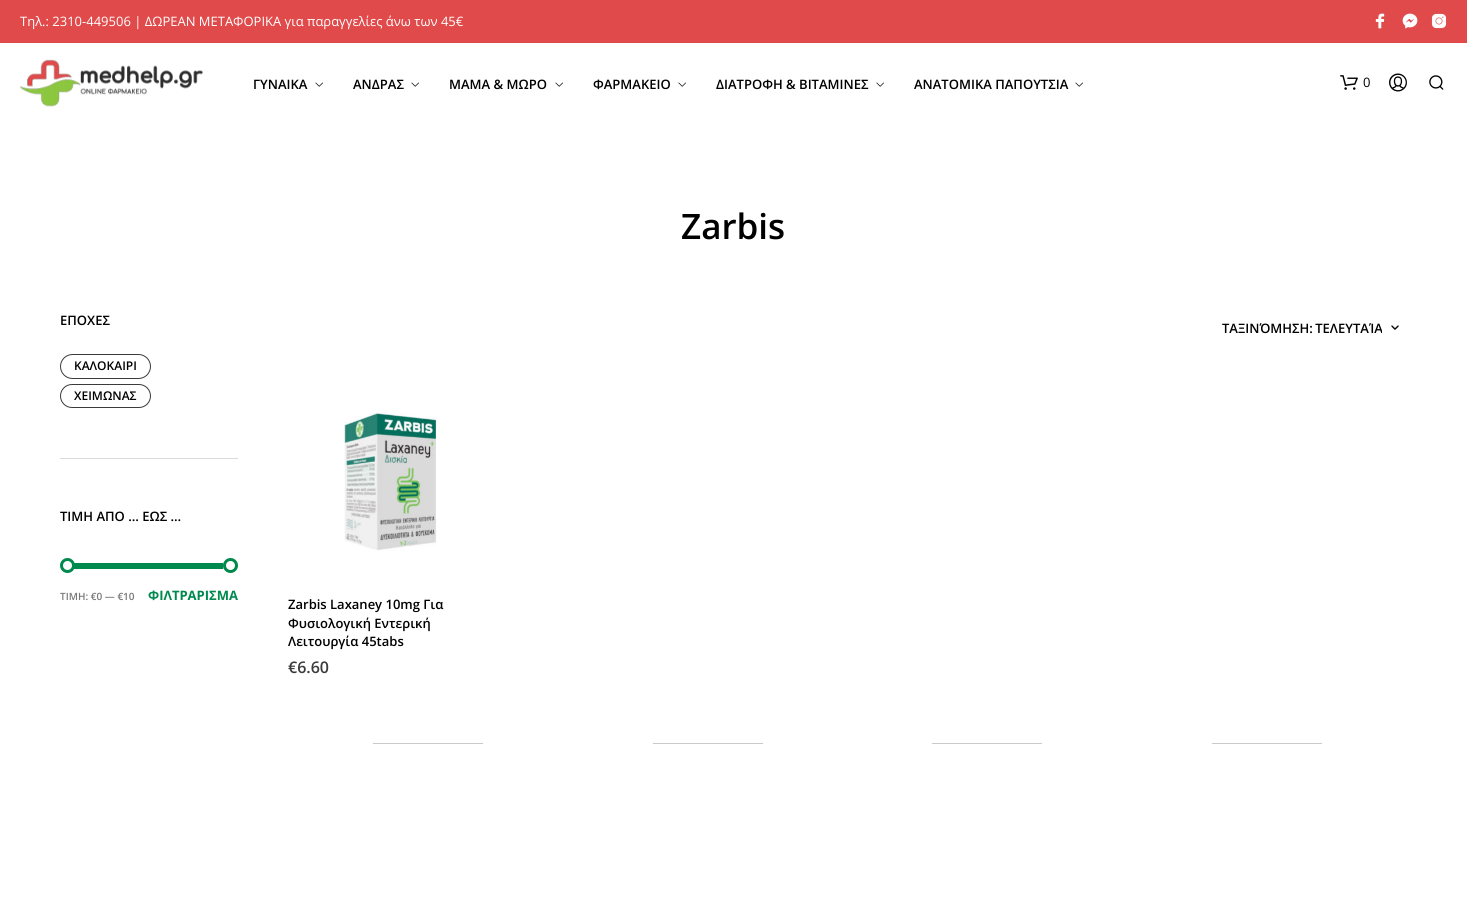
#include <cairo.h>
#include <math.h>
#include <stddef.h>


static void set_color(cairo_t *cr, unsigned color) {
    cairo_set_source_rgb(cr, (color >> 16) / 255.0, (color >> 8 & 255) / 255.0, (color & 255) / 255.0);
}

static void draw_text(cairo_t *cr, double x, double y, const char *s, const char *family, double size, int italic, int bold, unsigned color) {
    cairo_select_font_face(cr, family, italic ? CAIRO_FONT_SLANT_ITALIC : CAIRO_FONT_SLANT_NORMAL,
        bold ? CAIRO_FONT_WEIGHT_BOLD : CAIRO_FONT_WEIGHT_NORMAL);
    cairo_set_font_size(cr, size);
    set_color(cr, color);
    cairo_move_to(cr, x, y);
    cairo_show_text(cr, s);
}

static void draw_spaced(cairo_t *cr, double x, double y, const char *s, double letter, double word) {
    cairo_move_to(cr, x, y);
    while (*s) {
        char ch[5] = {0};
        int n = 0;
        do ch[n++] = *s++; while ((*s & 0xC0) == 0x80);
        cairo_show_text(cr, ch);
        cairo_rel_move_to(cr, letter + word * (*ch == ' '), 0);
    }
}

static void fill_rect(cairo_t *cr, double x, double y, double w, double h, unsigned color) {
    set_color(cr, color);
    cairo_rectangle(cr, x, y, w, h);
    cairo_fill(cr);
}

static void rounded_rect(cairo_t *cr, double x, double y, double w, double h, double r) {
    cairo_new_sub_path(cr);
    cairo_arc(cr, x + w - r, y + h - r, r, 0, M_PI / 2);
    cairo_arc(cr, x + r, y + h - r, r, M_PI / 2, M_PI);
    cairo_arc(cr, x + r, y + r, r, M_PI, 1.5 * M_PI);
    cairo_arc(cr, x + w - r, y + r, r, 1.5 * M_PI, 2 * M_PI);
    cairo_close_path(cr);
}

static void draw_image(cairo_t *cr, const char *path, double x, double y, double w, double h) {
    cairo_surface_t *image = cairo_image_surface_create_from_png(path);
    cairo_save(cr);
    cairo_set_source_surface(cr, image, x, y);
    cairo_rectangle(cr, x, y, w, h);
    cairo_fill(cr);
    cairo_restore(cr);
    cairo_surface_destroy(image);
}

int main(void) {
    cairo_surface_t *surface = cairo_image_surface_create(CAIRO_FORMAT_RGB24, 1467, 921);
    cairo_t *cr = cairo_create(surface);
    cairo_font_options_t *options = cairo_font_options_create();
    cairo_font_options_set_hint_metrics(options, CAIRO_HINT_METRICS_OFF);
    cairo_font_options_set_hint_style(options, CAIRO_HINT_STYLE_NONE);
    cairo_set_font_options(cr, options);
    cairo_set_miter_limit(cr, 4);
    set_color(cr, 0xFFFFFF);
    cairo_paint(cr);
    fill_rect(cr, 0, 0, 1467, 43, 0xE04A4A);
    draw_text(cr, 20, 26, "Τηλ.: 2310-449506 | ΔΩΡΕΑΝ ΜΕΤΑΦΟΡΙΚΑ για παραγγελίες άνω των 45€", "Open Sans", 13, 0, 0, 0xFFFFFF);
    draw_image(cr, "assets/img1.png", 1375, 13, 10, 16);
    draw_image(cr, "assets/img2.png", 1402, 13, 16, 16);
    draw_image(cr, "assets/img3.png", 1431, 13, 16, 16);
    draw_image(cr, "assets/img4.png", 20, 59, 183, 48);
    draw_text(cr, 253, 89, "ΓΥΝΑΙΚΑ", "Open Sans SemiBold", 13, 0, 0, 0x000000);
    draw_image(cr, "assets/img5.png", 315, 82, 8, 5);
    draw_text(cr, 353, 89, "ΑΝΔΡΑΣ", "Open Sans SemiBold", 13, 0, 0, 0x000000);
    draw_image(cr, "assets/img5.png", 411, 82, 8, 5);
    draw_text(cr, 449, 89, "ΜΑΜΑ & ΜΩΡΟ", "Open Sans SemiBold", 13, 0, 0, 0x000000);
    draw_image(cr, "assets/img5.png", 555, 82, 8, 5);
    draw_text(cr, 593, 89, "ΦΑΡΜΑΚΕΙΟ", "Open Sans SemiBold", 13, 0, 0, 0x000000);
    draw_image(cr, "assets/img5.png", 678, 82, 8, 5);
    draw_text(cr, 716, 89, "ΔΙΑΤΡΟΦΗ & ΒΙΤΑΜΙΝΕΣ", "Open Sans SemiBold", 13, 0, 0, 0x000000);
    draw_image(cr, "assets/img5.png", 876, 82, 8, 5);
    draw_text(cr, 914, 89, "ΑΝΑΤΟΜΙΚΑ ΠΑΠΟΥΤΣΙΑ", "Open Sans SemiBold", 13, 0, 0, 0x000000);
    draw_image(cr, "assets/img5.png", 1075, 82, 8, 5);
    draw_image(cr, "assets/img6.png", 1340, 75, 18, 15);
    draw_text(cr, 1363, 87, "0", "Open Sans", 13, 0, 0, 0x000000);
    draw_image(cr, "assets/img7.png", 1389, 73, 18, 19);
    draw_image(cr, "assets/img8.png", 1429, 75, 15, 15);
    draw_text(cr, 681, 239, "Zarbis", "Open Sans SemiBold", 35, 0, 0, 0x000000);
    fill_rect(cr, 60, 458, 178, 1, 0xDADADA);
    draw_text(cr, 60, 325, "ΕΠΟΧΕΣ", "Open Sans SemiBold", 13, 0, 0, 0x000000);
    rounded_rect(cr, 60.5, 354.5, 90, 24, 12);
    set_color(cr, 0x3B3B3B);
    cairo_set_line_width(cr, 1);
    cairo_stroke(cr);
    draw_text(cr, 74, 370, "ΚΑΛΟΚΑΙΡΙ", "Open Sans SemiBold", 12, 0, 0, 0x000000);
    rounded_rect(cr, 60.5, 384.5, 90, 23, 11.5);
    set_color(cr, 0x3B3B3B);
    cairo_stroke(cr);
    draw_text(cr, 74, 400, "ΧΕΙΜΩΝΑΣ", "Open Sans SemiBold", 12, 0, 0, 0x000000);
    draw_text(cr, 60, 521, "ΤΙΜΗ ΑΠΟ … ΕΩΣ …", "Open Sans SemiBold", 13, 0, 0, 0x000000);
    fill_rect(cr, 67, 563, 156, 6, 0x00894D);
    set_color(cr, 0xFFFFFF);
    cairo_new_path(cr);
    cairo_arc(cr, 67.5, 565.5, 6, 0, 2 * M_PI);
    cairo_fill_preserve(cr);
    set_color(cr, 0x00894D);
    cairo_set_line_width(cr, 3);
    cairo_stroke(cr);
    set_color(cr, 0xDDDDDD);
    cairo_new_path(cr);
    cairo_move_to(cr, 223, 563);
    cairo_line_to(cr, 235, 563);
    cairo_curve_to(cr, 236.5, 563, 238, 564.5, 238, 566);
    cairo_curve_to(cr, 238, 567.5, 236.5, 569, 235, 569);
    cairo_line_to(cr, 223, 569);
    cairo_close_path(cr);
    cairo_fill(cr);
    set_color(cr, 0xFFFFFF);
    cairo_arc(cr, 230.5, 565.5, 6, 0, 2 * M_PI);
    cairo_fill_preserve(cr);
    set_color(cr, 0x00894D);
    cairo_stroke(cr);
    draw_text(cr, 60, 600, "ΤΙΜΗ: €0 — €10", "Open Sans SemiBold", 10, 0, 0, 0x787878);
    draw_text(cr, 148, 600, "ΦΙΛΤΡΑΡΙΣΜΑ", "Open Sans", 13, 0, 1, 0x00894D);
    draw_image(cr, "assets/img9.png", 1391, 325, 8, 5);
    cairo_save(cr);
    cairo_rectangle(cr, 1021, 316, 361, 24);
    cairo_clip(cr);
    cairo_select_font_face(cr, "Open Sans SemiBold", CAIRO_FONT_SLANT_NORMAL, CAIRO_FONT_WEIGHT_NORMAL);
    set_color(cr, 0x000000);
    draw_spaced(cr, 1222, 333, "ΤΑΞΙΝΌΜΗΣΗ: ΤΕΛΕΥΤΑΊΑ", 0, -1);
    cairo_restore(cr);
    draw_image(cr, "assets/img10.png", 344, 412, 93, 139);
    draw_text(cr, 288, 609, "Zarbis Laxaney 10mg Για", "Open Sans SemiBold", 13, 0, 0, 0x000000);
    draw_text(cr, 288, 628, "Φυσιολογική Εντερική", "Open Sans SemiBold", 13, 0, 0, 0x000000);
    draw_text(cr, 288, 646, "Λειτουργία 45tabs", "Open Sans SemiBold", 13, 0, 0, 0x000000);
    draw_text(cr, 288, 673, "€6.60", "Open Sans SemiBold", 16, 0, 0, 0x3B3B3B);
    fill_rect(cr, 373, 743, 110, 1, 0xCACACA);
    fill_rect(cr, 653, 743, 110, 1, 0xCACACA);
    fill_rect(cr, 932, 743, 110, 1, 0xCACACA);
    fill_rect(cr, 1212, 743, 110, 1, 0xCACACA);
    cairo_surface_write_to_png(surface, "output.png");
    cairo_font_options_destroy(options);
    cairo_destroy(cr);
    cairo_surface_destroy(surface);
    return 0;
}
